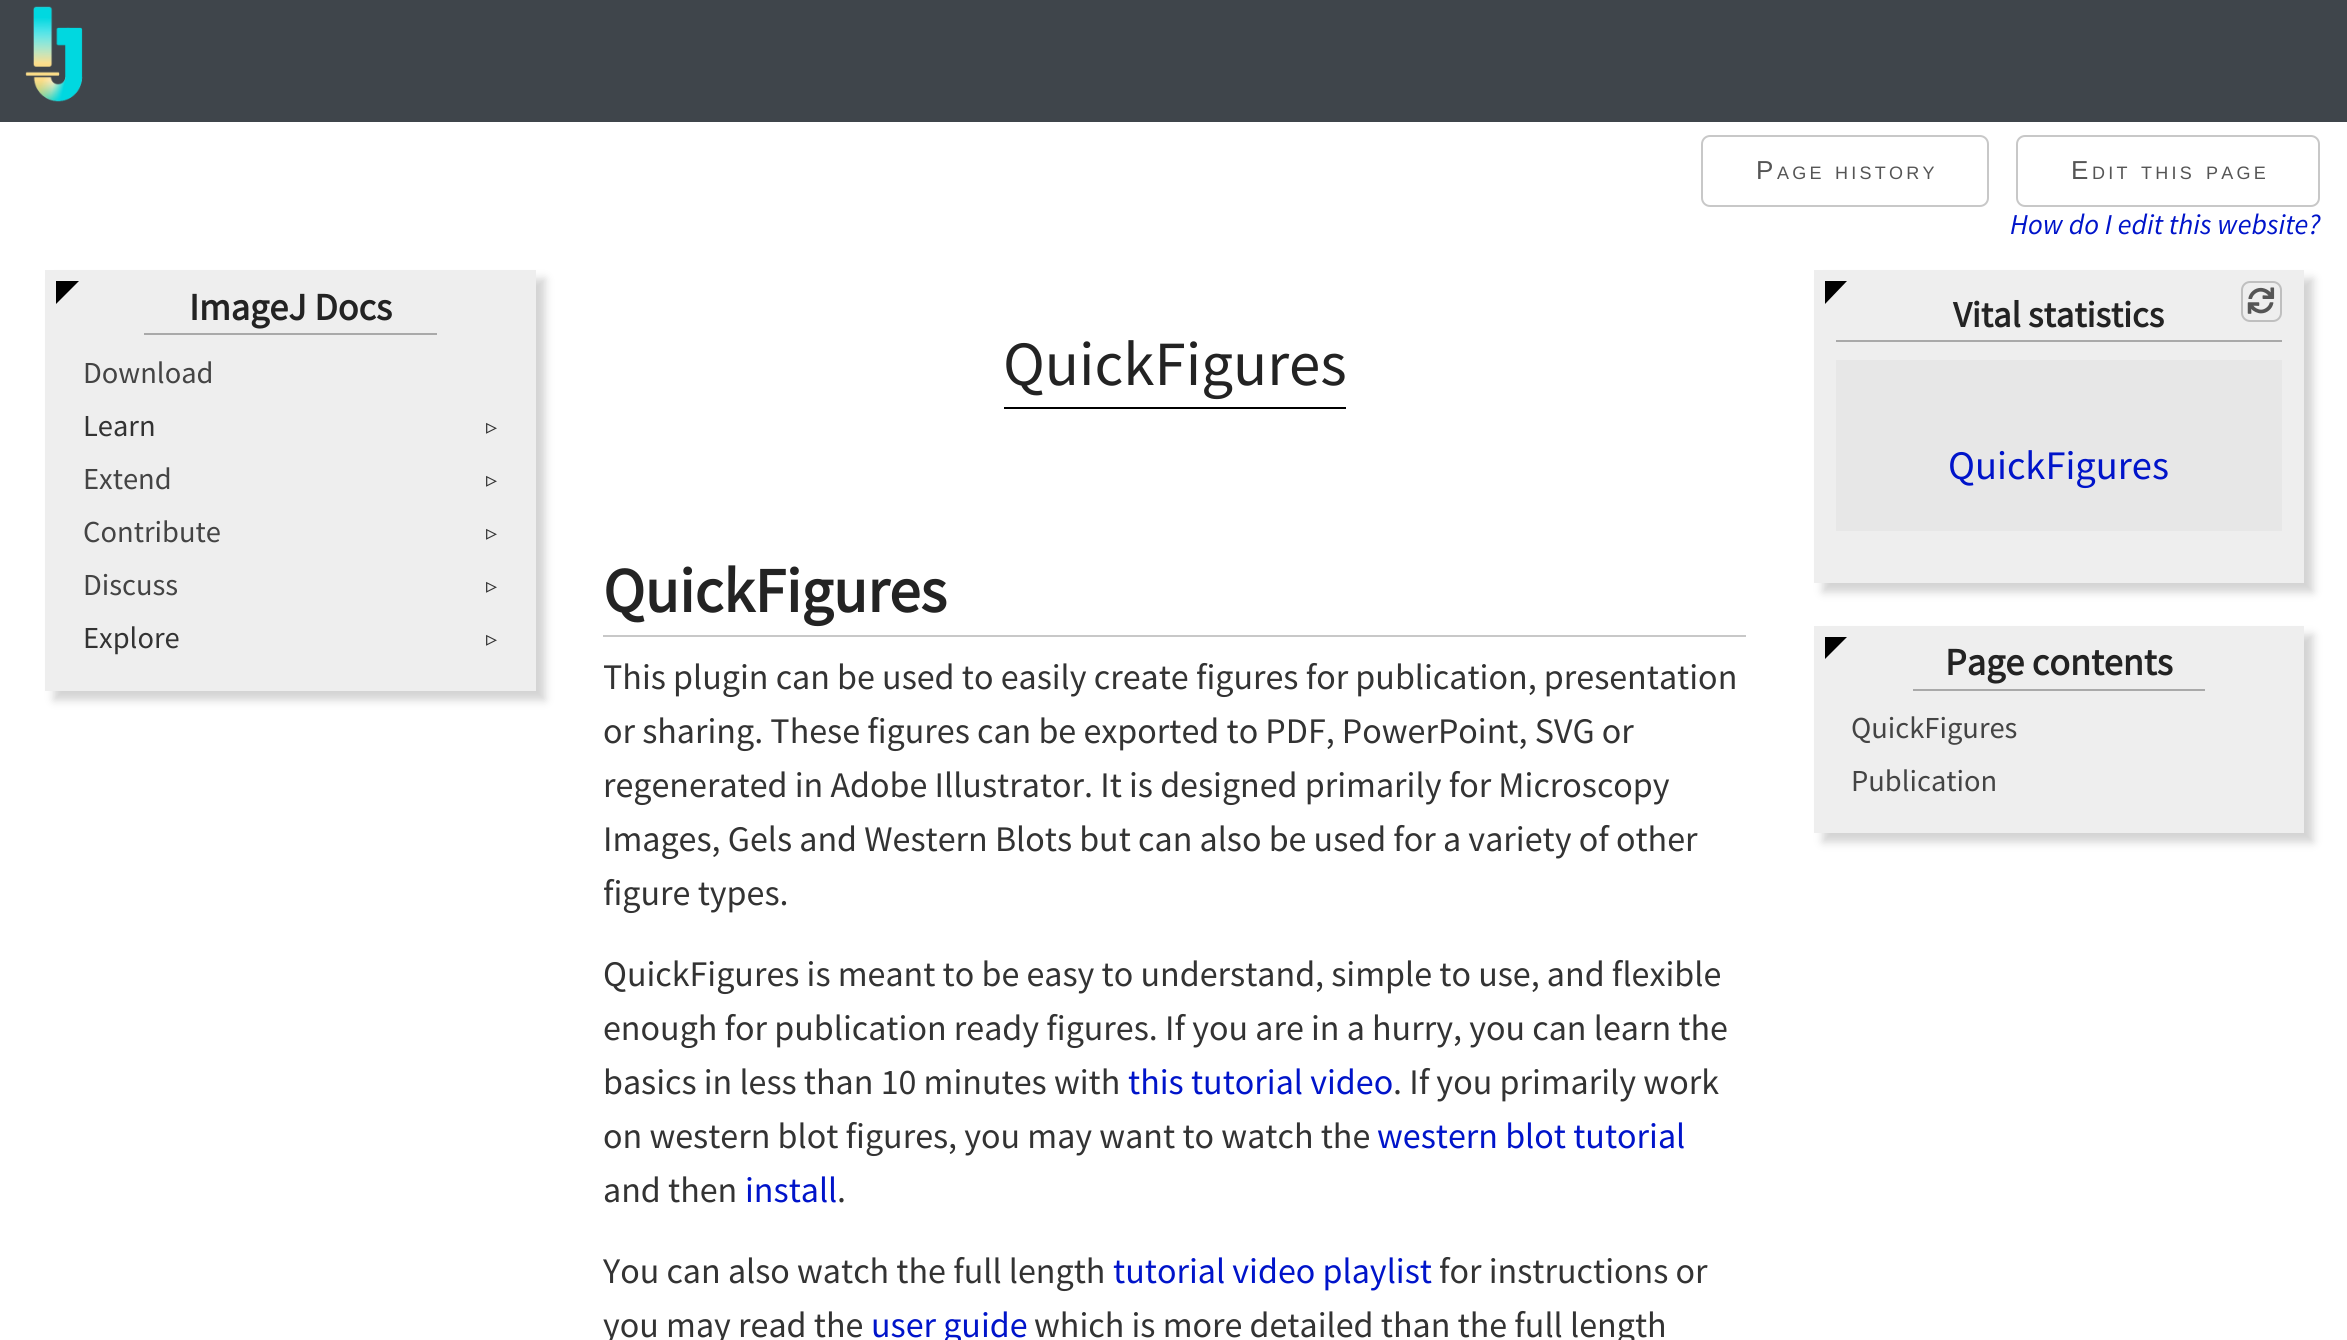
#include <cairo.h>
#include <math.h>
#include <stddef.h>


static void set_color(cairo_t *cr, unsigned color) {
    cairo_set_source_rgb(cr, (color >> 16) / 255.0, (color >> 8 & 255) / 255.0, (color & 255) / 255.0);
}

static void draw_text(cairo_t *cr, double x, double y, const char *s, const char *family, double size, int italic, int bold, unsigned color) {
    cairo_select_font_face(cr, family, italic ? CAIRO_FONT_SLANT_ITALIC : CAIRO_FONT_SLANT_NORMAL,
        bold ? CAIRO_FONT_WEIGHT_BOLD : CAIRO_FONT_WEIGHT_NORMAL);
    cairo_set_font_size(cr, size);
    set_color(cr, color);
    cairo_move_to(cr, x, y);
    cairo_show_text(cr, s);
}

static void draw_spaced(cairo_t *cr, double x, double y, const char *s, double letter, double word) {
    cairo_move_to(cr, x, y);
    while (*s) {
        char ch[5] = {0};
        int n = 0;
        do ch[n++] = *s++; while ((*s & 0xC0) == 0x80);
        cairo_show_text(cr, ch);
        cairo_rel_move_to(cr, letter + word * (*ch == ' '), 0);
    }
}

static void fill_rect(cairo_t *cr, double x, double y, double w, double h, unsigned color) {
    set_color(cr, color);
    cairo_rectangle(cr, x, y, w, h);
    cairo_fill(cr);
}

static void rounded_rect(cairo_t *cr, double x, double y, double w, double h, double r) {
    cairo_new_sub_path(cr);
    cairo_arc(cr, x + w - r, y + h - r, r, 0, M_PI / 2);
    cairo_arc(cr, x + r, y + h - r, r, M_PI / 2, M_PI);
    cairo_arc(cr, x + r, y + r, r, M_PI, 1.5 * M_PI);
    cairo_arc(cr, x + w - r, y + r, r, 1.5 * M_PI, 2 * M_PI);
    cairo_close_path(cr);
}

static void draw_shadow(cairo_t *cr, double x, double y, double w, double h, double r, double blur, double alpha) {
    cairo_push_group_with_content(cr, CAIRO_CONTENT_ALPHA);
    cairo_set_operator(cr, CAIRO_OPERATOR_SOURCE);
    for (int i = 15; i >= -15 && fmin(w, h) + blur * i / 3 > 0; i -= 2) {
        double e = blur * i / 6;
        cairo_set_source_rgba(cr, 0, 0, 0, alpha * erfc((i - 1) / 8.5) / 2);
        rounded_rect(cr, x - e, y - e, w + 2 * e, h + 2 * e, fmax(0, fmin(r + e + blur * .6, fmin(w, h) / 2 + e)));
        cairo_fill(cr);
    }
    cairo_pattern_t *soft = cairo_pop_group(cr);
    cairo_mask(cr, soft);
    cairo_pattern_destroy(soft);
}

static void draw_image(cairo_t *cr, const char *path, double x, double y, double w, double h) {
    cairo_surface_t *image = cairo_image_surface_create_from_png(path);
    cairo_save(cr);
    cairo_set_source_surface(cr, image, x, y);
    cairo_rectangle(cr, x, y, w, h);
    cairo_fill(cr);
    cairo_restore(cr);
    cairo_surface_destroy(image);
}

int main(void) {
    cairo_surface_t *surface = cairo_image_surface_create(CAIRO_FORMAT_RGB24, 2347, 1340);
    cairo_t *cr = cairo_create(surface);
    cairo_font_options_t *options = cairo_font_options_create();
    cairo_font_options_set_hint_metrics(options, CAIRO_HINT_METRICS_OFF);
    cairo_font_options_set_hint_style(options, CAIRO_HINT_STYLE_NONE);
    cairo_set_font_options(cr, options);
    cairo_set_miter_limit(cr, 4);
    set_color(cr, 0xFFFFFF);
    cairo_paint(cr);
    fill_rect(cr, 0, 0, 2347, 122, 0x3F454B);
    draw_image(cr, "assets/img1.png", 25, 6, 58, 96);
    rounded_rect(cr, 1702, 136, 286, 70, 8);
    set_color(cr, 0xC8C8C8);
    cairo_stroke(cr);
    cairo_select_font_face(cr, "Liberation Sans", CAIRO_FONT_SLANT_NORMAL, CAIRO_FONT_WEIGHT_NORMAL);
    cairo_set_font_size(cr, 26);
    set_color(cr, 0x555555);
    draw_spaced(cr, 1756, 179, "P", 3.25, 0);
    cairo_set_font_size(cr, 18);
    draw_spaced(cr, 1777, 179, "AGE", 3.25, 0);
    draw_spaced(cr, 1835, 179, "HISTORY", 3.25, 0);
    rounded_rect(cr, 2017, 136, 302, 70, 8);
    set_color(cr, 0xC8C8C8);
    cairo_stroke(cr);
    cairo_set_font_size(cr, 26);
    set_color(cr, 0x555555);
    draw_spaced(cr, 2071, 179, "E", 3.25, 0);
    cairo_set_font_size(cr, 18);
    draw_spaced(cr, 2092, 179, "DIT", 3.25, 0);
    draw_spaced(cr, 2141, 179, "THIS", 3.25, 0);
    draw_spaced(cr, 2206, 179, "PAGE", 3.25, 0);
    draw_text(cr, 2010, 234, "How do I edit this website?", "Source Sans Pro", 28.75, 1, 0, 0x0014CA);
    set_color(cr, 0xD3D3D3);
    draw_shadow(cr, 54, 279, 491, 421, 0, 4.5, 1);
    fill_rect(cr, 45, 270, 491, 421, 0xEEEEEE);
    set_color(cr, 0x000000);
    cairo_new_path(cr);
    cairo_move_to(cr, 56, 281);
    cairo_line_to(cr, 79, 281);
    cairo_line_to(cr, 56, 304);
    cairo_close_path(cr);
    cairo_fill(cr);
    fill_rect(cr, 144, 333, 293, 2, 0xA9A9A9);
    draw_text(cr, 189, 320, "ImageJ Docs", "Source Sans Pro", 38.25, 0, 1, 0x232323);
    draw_text(cr, 83, 383, "Download", "Source Sans Pro", 30.5, 0, 0, 0x444444);
    draw_text(cr, 83, 436, "Learn", "Source Sans Pro", 30.5, 0, 0, 0x333333);
    draw_text(cr, 486, 434, "▹", "DejaVu Sans", 22, 0, 0, 0x333333);
    draw_text(cr, 83, 489, "Extend", "Source Sans Pro", 30.5, 0, 0, 0x444444);
    draw_text(cr, 486, 487, "▹", "DejaVu Sans", 22, 0, 0, 0x333333);
    draw_text(cr, 83, 542, "Contribute", "Source Sans Pro", 30.5, 0, 0, 0x444444);
    draw_text(cr, 486, 540, "▹", "DejaVu Sans", 22, 0, 0, 0x333333);
    draw_text(cr, 83, 595, "Discuss", "Source Sans Pro", 30.5, 0, 0, 0x444444);
    draw_text(cr, 486, 593, "▹", "DejaVu Sans", 22, 0, 0, 0x333333);
    draw_text(cr, 83, 648, "Explore", "Source Sans Pro", 30.5, 0, 0, 0x333333);
    draw_text(cr, 486, 646, "▹", "DejaVu Sans", 22, 0, 0, 0x333333);
    fill_rect(cr, 1004, 407, 342, 2, 0x000000);
    draw_text(cr, 1003, 385, "QuickFigures", "Source Sans Pro", 63, 0, 0, 0x232323);
    set_color(cr, 0xD3D3D3);
    draw_shadow(cr, 1823, 279, 490, 313, 0, 4.5, 1);
    fill_rect(cr, 1814, 270, 490, 313, 0xEEEEEE);
    set_color(cr, 0x000000);
    cairo_new_path(cr);
    cairo_move_to(cr, 1825, 281);
    cairo_line_to(cr, 1847, 281);
    cairo_line_to(cr, 1825, 304);
    cairo_close_path(cr);
    cairo_fill(cr);
    fill_rect(cr, 1836, 340, 446, 2, 0xA9A9A9);
    draw_text(cr, 1953, 327, "Vital statistics", "Source Sans Pro", 36.5, 0, 1, 0x232323);
    rounded_rect(cr, 2242, 282, 39, 39, 8);
    set_color(cr, 0xBFBFBF);
    cairo_stroke(cr);
    draw_image(cr, "assets/img2.png", 2247, 287, 28, 27);
    fill_rect(cr, 1836, 360, 446, 171, 0xE7E7E7);
    draw_text(cr, 1948, 479, "QuickFigures", "Source Sans Pro", 40.5, 0, 0, 0x0014CA);
    set_color(cr, 0xD3D3D3);
    draw_shadow(cr, 1823, 635, 490, 207, 0, 4.5, 1);
    fill_rect(cr, 1814, 626, 490, 207, 0xEEEEEE);
    set_color(cr, 0x000000);
    cairo_new_path(cr);
    cairo_move_to(cr, 1825, 637);
    cairo_line_to(cr, 1847, 637);
    cairo_line_to(cr, 1825, 659);
    cairo_close_path(cr);
    cairo_fill(cr);
    fill_rect(cr, 1913, 689, 292, 2, 0xA9A9A9);
    draw_text(cr, 1945, 675, "Page contents", "Source Sans Pro", 38.25, 0, 1, 0x232323);
    draw_text(cr, 1851, 738, "QuickFigures", "Source Sans Pro", 30.5, 0, 0, 0x444444);
    draw_text(cr, 1851, 791, "Publication", "Source Sans Pro", 30.5, 0, 0, 0x444444);
    fill_rect(cr, 603, 635, 1143, 2, 0xC8C8C8);
    draw_text(cr, 603, 612, "QuickFigures", "Source Sans Pro", 63, 0, 1, 0x232323);
    draw_text(cr, 603, 689, "This plugin can be used to easily create figures for publication, presentation", "Source Sans Pro", 36, 0, 0, 0x333333);
    draw_text(cr, 603, 743, "or sharing. These figures can be exported to PDF, PowerPoint, SVG or", "Source Sans Pro", 36, 0, 0, 0x333333);
    draw_text(cr, 603, 797, "regenerated in Adobe Illustrator. It is designed primarily for Microscopy", "Source Sans Pro", 36, 0, 0, 0x333333);
    draw_text(cr, 603, 851, "Images, Gels and Western Blots but can also be used for a variety of other", "Source Sans Pro", 36, 0, 0, 0x333333);
    draw_text(cr, 603, 905, "figure types.", "Source Sans Pro", 36, 0, 0, 0x333333);
    draw_text(cr, 603, 986, "QuickFigures is meant to be easy to understand, simple to use, and flexible", "Source Sans Pro", 36, 0, 0, 0x333333);
    draw_text(cr, 603, 1040, "enough for publication ready figures. If you are in a hurry, you can learn the", "Source Sans Pro", 36, 0, 0, 0x333333);
    draw_text(cr, 603, 1094, "basics in less than 10 minutes with", "Source Sans Pro", 36, 0, 0, 0x333333);
    draw_text(cr, 1128, 1094, "this tutorial video", "Source Sans Pro", 36, 0, 0, 0x0014CA);
    draw_text(cr, 1393, 1094, ". If you primarily work", "Source Sans Pro", 36, 0, 0, 0x333333);
    draw_text(cr, 603, 1148, "on western blot figures, you may want to watch the", "Source Sans Pro", 36, 0, 0, 0x333333);
    draw_text(cr, 1377, 1148, "western blot tutorial", "Source Sans Pro", 36, 0, 0, 0x0014CA);
    draw_text(cr, 603, 1202, "and then", "Source Sans Pro", 36, 0, 0, 0x333333);
    draw_text(cr, 745, 1202, "install", "Source Sans Pro", 36, 0, 0, 0x0014CA);
    draw_text(cr, 837, 1202, ".", "Source Sans Pro", 36, 0, 0, 0x333333);
    draw_text(cr, 603, 1283, "You can also watch the full length", "Source Sans Pro", 36, 0, 0, 0x333333);
    draw_text(cr, 1113, 1283, "tutorial video playlist", "Source Sans Pro", 36, 0, 0, 0x0014CA);
    draw_text(cr, 1439, 1283, "for instructions or", "Source Sans Pro", 36, 0, 0, 0x333333);
    draw_text(cr, 603, 1337, "you may read the", "Source Sans Pro", 36, 0, 0, 0x333333);
    draw_text(cr, 871, 1337, "user guide", "Source Sans Pro", 36, 0, 0, 0x0014CA);
    draw_text(cr, 1034, 1337, "which is more detailed than the full length", "Source Sans Pro", 36, 0, 0, 0x333333);
    cairo_surface_write_to_png(surface, "output.png");
    cairo_font_options_destroy(options);
    cairo_destroy(cr);
    cairo_surface_destroy(surface);
    return 0;
}
